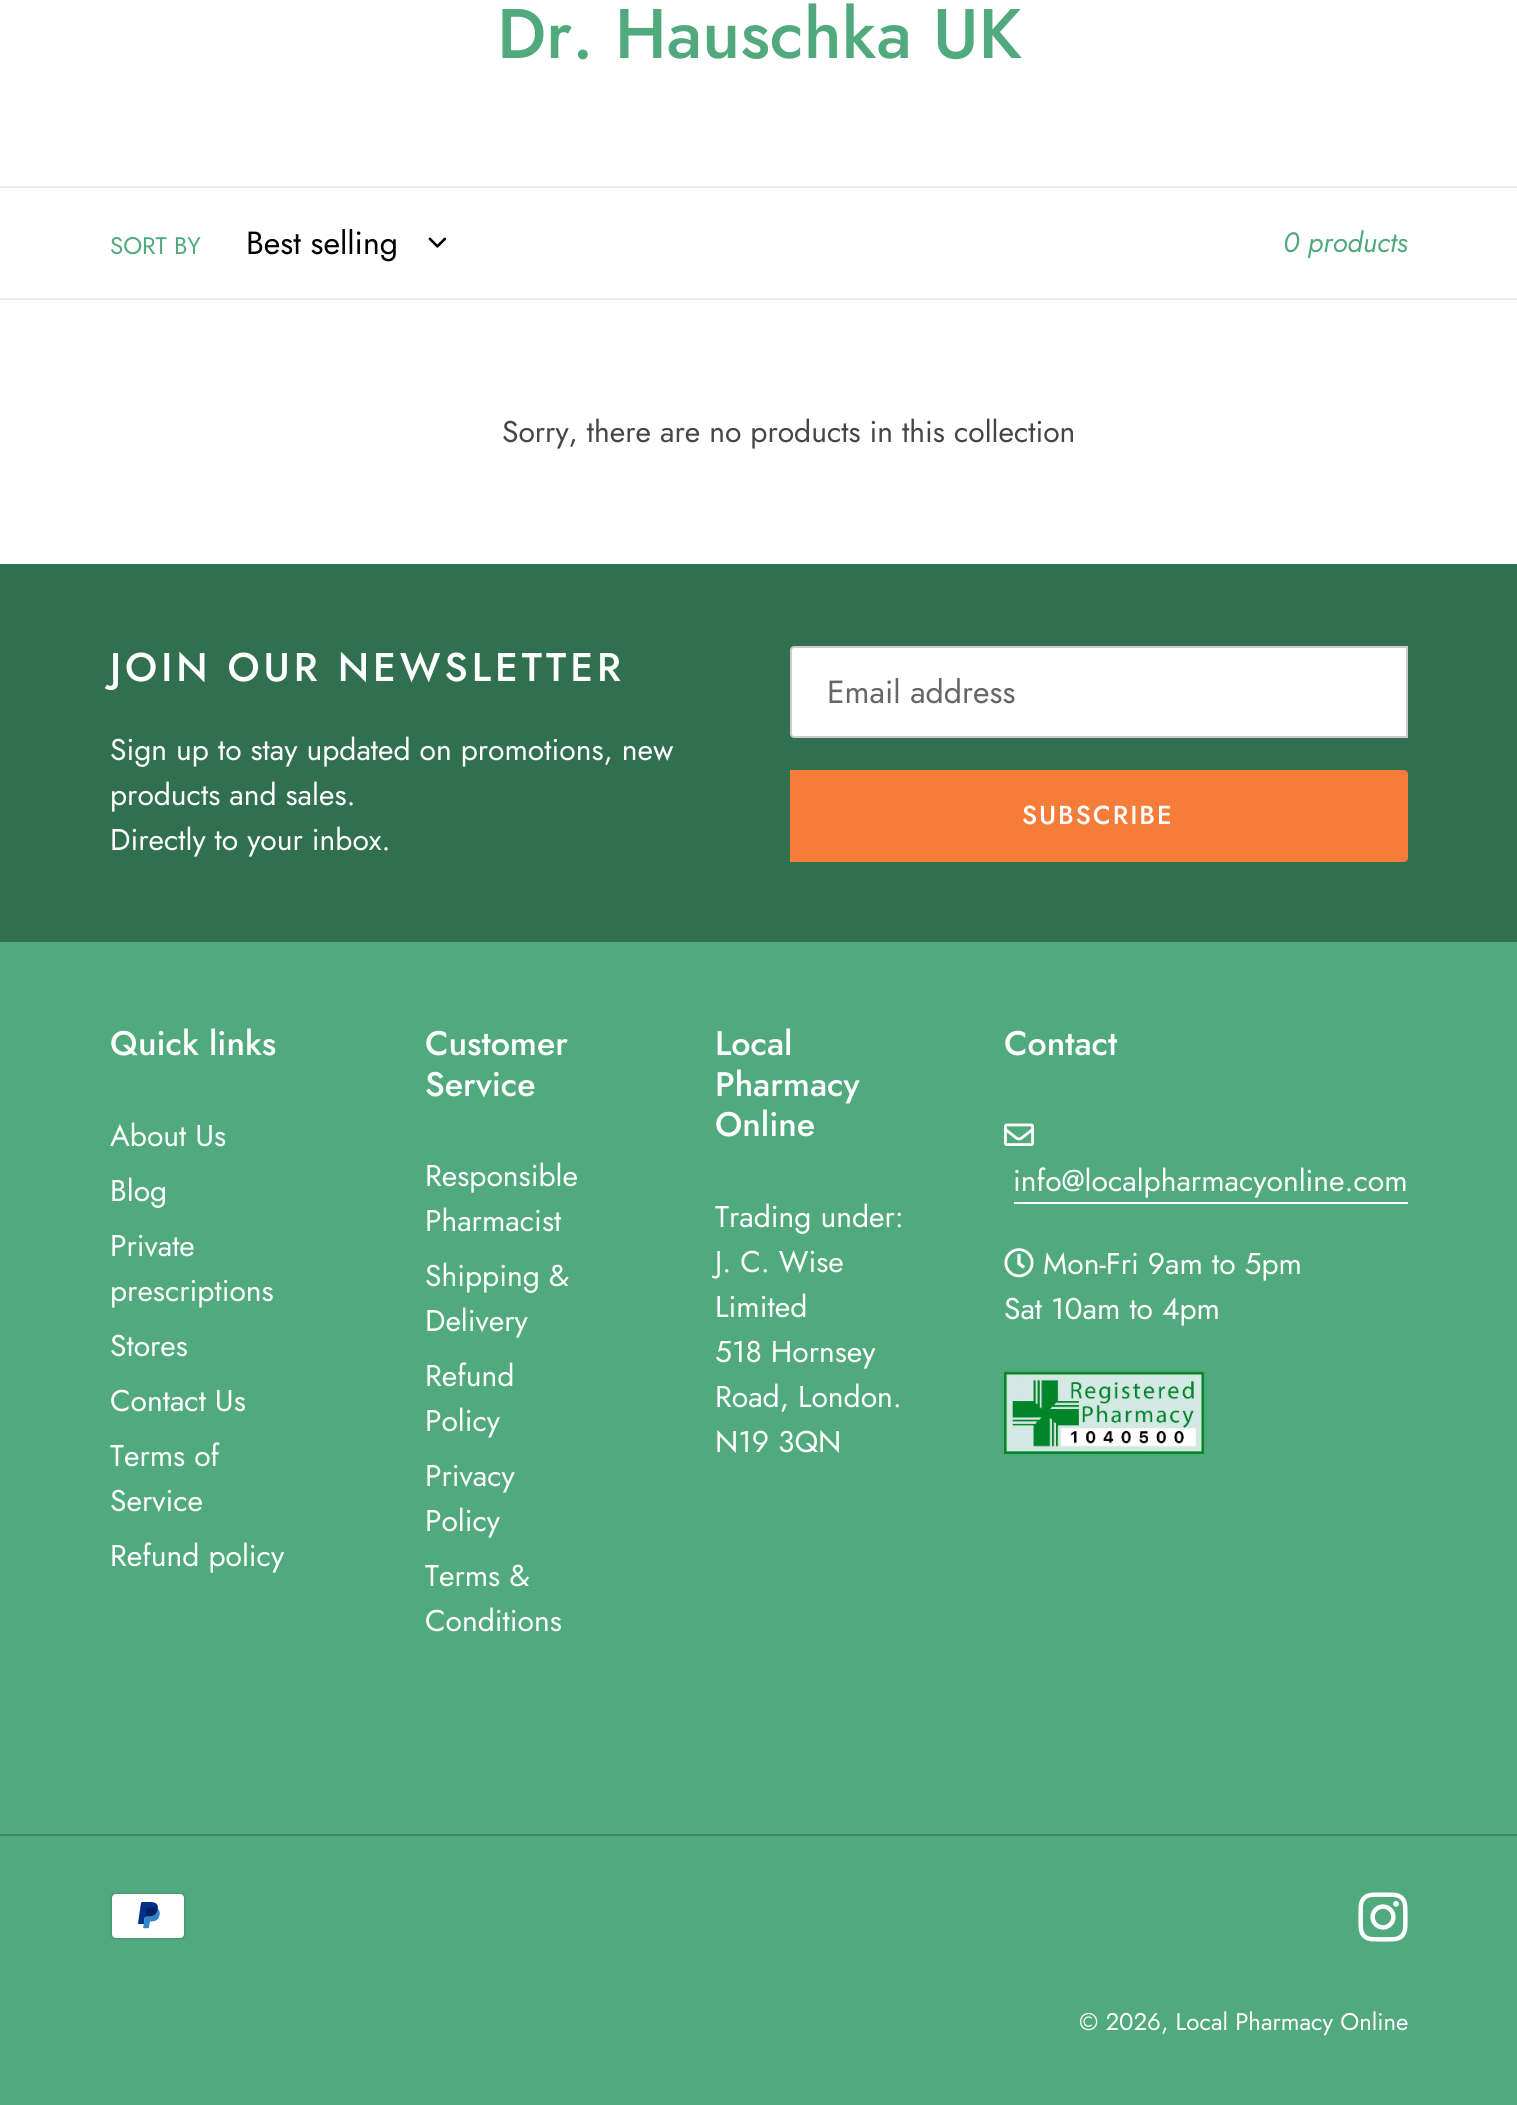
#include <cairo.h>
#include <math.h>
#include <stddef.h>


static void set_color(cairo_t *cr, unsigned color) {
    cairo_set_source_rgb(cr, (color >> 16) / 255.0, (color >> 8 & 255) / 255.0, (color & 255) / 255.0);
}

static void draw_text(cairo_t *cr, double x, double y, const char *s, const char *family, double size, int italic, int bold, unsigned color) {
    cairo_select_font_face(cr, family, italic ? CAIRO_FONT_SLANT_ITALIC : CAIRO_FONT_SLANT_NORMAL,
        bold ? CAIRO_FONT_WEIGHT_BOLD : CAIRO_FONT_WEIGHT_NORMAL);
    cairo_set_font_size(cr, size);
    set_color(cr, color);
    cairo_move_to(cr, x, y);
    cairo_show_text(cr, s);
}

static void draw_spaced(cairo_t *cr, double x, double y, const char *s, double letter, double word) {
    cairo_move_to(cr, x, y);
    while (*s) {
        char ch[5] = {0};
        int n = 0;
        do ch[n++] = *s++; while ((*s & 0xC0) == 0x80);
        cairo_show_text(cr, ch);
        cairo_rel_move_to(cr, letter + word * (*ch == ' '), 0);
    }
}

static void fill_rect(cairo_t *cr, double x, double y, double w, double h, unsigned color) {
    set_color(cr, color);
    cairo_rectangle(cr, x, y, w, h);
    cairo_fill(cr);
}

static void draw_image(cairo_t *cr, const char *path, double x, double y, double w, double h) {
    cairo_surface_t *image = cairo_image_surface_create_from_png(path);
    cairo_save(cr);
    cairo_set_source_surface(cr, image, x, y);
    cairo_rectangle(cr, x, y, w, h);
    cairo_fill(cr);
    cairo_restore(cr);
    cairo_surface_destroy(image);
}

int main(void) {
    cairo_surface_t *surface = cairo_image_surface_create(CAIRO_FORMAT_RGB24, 1517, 2105);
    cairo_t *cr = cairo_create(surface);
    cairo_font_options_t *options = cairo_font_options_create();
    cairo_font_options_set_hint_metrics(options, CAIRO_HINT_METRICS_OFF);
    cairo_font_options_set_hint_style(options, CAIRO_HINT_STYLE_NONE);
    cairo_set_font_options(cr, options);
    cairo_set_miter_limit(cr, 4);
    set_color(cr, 0xFFFFFF);
    cairo_paint(cr);
    draw_text(cr, 497, 58, "Dr. Hauschka UK", "Jost Medium", 70, 0, 0, 0x51AA7E);
    fill_rect(cr, 0, 186, 1517, 2, 0xEBEBEB);
    fill_rect(cr, 0, 298, 1517, 2, 0xEBEBEB);
    draw_text(cr, 110, 254, "SORT BY", "Jost", 24, 0, 0, 0x51AA7E);
    draw_text(cr, 246, 254, "Best selling", "Jost", 32, 0, 0, 0x000000);
    draw_image(cr, "assets/img1.png", 428, 237, 18, 11);
    draw_text(cr, 1283, 252, "0 products", "Jost", 28, 1, 0, 0x51AA7E);
    draw_text(cr, 502, 442, "Sorry, there are no products in this collection", "Jost", 30, 0, 0, 0x464646);
    fill_rect(cr, 0, 942, 1517, 1163, 0x51AA7E);
    fill_rect(cr, 0, 564, 1517, 378, 0x307050);
    cairo_select_font_face(cr, "Jost Medium", CAIRO_FONT_SLANT_NORMAL, CAIRO_FONT_WEIGHT_NORMAL);
    cairo_set_font_size(cr, 40);
    set_color(cr, 0xFFFFFF);
    draw_spaced(cr, 110, 681, "JOIN OUR NEWSLETTER", 4, 0);
    draw_text(cr, 110, 760, "Sign up to stay updated on promotions, new", "Jost", 30, 0, 0, 0xFFFFFF);
    draw_text(cr, 110, 805, "products and sales.", "Jost", 30, 0, 0, 0xFFFFFF);
    draw_text(cr, 110, 850, "Directly to your inbox.", "Jost", 30, 0, 0, 0xFFFFFF);
    cairo_new_path(cr);
    cairo_move_to(cr, 794, 647);
    cairo_line_to(cr, 1407, 647);
    cairo_line_to(cr, 1407, 737);
    cairo_line_to(cr, 794, 737);
    cairo_curve_to(cr, 792.5, 737, 791, 735.5, 791, 734);
    cairo_line_to(cr, 791, 650);
    cairo_curve_to(cr, 791, 648.5, 792.5, 647, 794, 647);
    cairo_close_path(cr);
    cairo_fill_preserve(cr);
    set_color(cr, 0xCCCCCC);
    cairo_stroke(cr);
    draw_text(cr, 827, 703, "Email address", "Jost", 32, 0, 0, 0x666666);
    set_color(cr, 0xF67D39);
    cairo_new_path(cr);
    cairo_move_to(cr, 790, 770);
    cairo_line_to(cr, 1404, 770);
    cairo_curve_to(cr, 1406, 770, 1408, 772, 1408, 774);
    cairo_line_to(cr, 1408, 858);
    cairo_curve_to(cr, 1408, 860, 1406, 862, 1404, 862);
    cairo_line_to(cr, 790, 862);
    cairo_close_path(cr);
    cairo_fill(cr);
    cairo_select_font_face(cr, "Jost Medium", CAIRO_FONT_SLANT_NORMAL, CAIRO_FONT_WEIGHT_NORMAL);
    cairo_set_font_size(cr, 26);
    set_color(cr, 0xFFFFFF);
    draw_spaced(cr, 1022, 824, "SUBSCRIBE", 2, 0);
    draw_text(cr, 110, 1055, "Quick links", "Jost Medium", 34, 0, 0, 0xFFFFFF);
    draw_text(cr, 110, 1146, "About Us", "Jost", 30, 0, 0, 0xFFFFFF);
    draw_text(cr, 110, 1201, "Blog", "Jost", 30, 0, 0, 0xFFFFFF);
    draw_text(cr, 110, 1256, "Private", "Jost", 30, 0, 0, 0xFFFFFF);
    draw_text(cr, 110, 1301, "prescriptions", "Jost", 30, 0, 0, 0xFFFFFF);
    draw_text(cr, 110, 1356, "Stores", "Jost", 30, 0, 0, 0xFFFFFF);
    draw_text(cr, 110, 1411, "Contact Us", "Jost", 30, 0, 0, 0xFFFFFF);
    draw_text(cr, 110, 1466, "Terms of", "Jost", 30, 0, 0, 0xFFFFFF);
    draw_text(cr, 110, 1511, "Service", "Jost", 30, 0, 0, 0xFFFFFF);
    draw_text(cr, 110, 1566, "Refund policy", "Jost", 30, 0, 0, 0xFFFFFF);
    draw_text(cr, 425, 1055, "Customer", "Jost Medium", 34, 0, 0, 0xFFFFFF);
    draw_text(cr, 425, 1096, "Service", "Jost Medium", 34, 0, 0, 0xFFFFFF);
    draw_text(cr, 425, 1186, "Responsible", "Jost", 30, 0, 0, 0xFFFFFF);
    draw_text(cr, 425, 1231, "Pharmacist", "Jost", 30, 0, 0, 0xFFFFFF);
    draw_text(cr, 425, 1286, "Shipping &", "Jost", 30, 0, 0, 0xFFFFFF);
    draw_text(cr, 425, 1331, "Delivery", "Jost", 30, 0, 0, 0xFFFFFF);
    draw_text(cr, 425, 1386, "Refund", "Jost", 30, 0, 0, 0xFFFFFF);
    draw_text(cr, 425, 1431, "Policy", "Jost", 30, 0, 0, 0xFFFFFF);
    draw_text(cr, 425, 1486, "Privacy", "Jost", 30, 0, 0, 0xFFFFFF);
    draw_text(cr, 425, 1531, "Policy", "Jost", 30, 0, 0, 0xFFFFFF);
    draw_text(cr, 425, 1586, "Terms &", "Jost", 30, 0, 0, 0xFFFFFF);
    draw_text(cr, 425, 1631, "Conditions", "Jost", 30, 0, 0, 0xFFFFFF);
    draw_text(cr, 715, 1055, "Local", "Jost Medium", 34, 0, 0, 0xFFFFFF);
    draw_text(cr, 715, 1096, "Pharmacy", "Jost Medium", 34, 0, 0, 0xFFFFFF);
    draw_text(cr, 715, 1136, "Online", "Jost Medium", 34, 0, 0, 0xFFFFFF);
    draw_text(cr, 715, 1227, "Trading under:", "Jost", 30, 0, 0, 0xFFFFFF);
    draw_text(cr, 715, 1272, "J. C. Wise", "Jost", 30, 0, 0, 0xFFFFFF);
    draw_text(cr, 715, 1317, "Limited", "Jost", 30, 0, 0, 0xFFFFFF);
    draw_text(cr, 715, 1362, "518 Hornsey", "Jost", 30, 0, 0, 0xFFFFFF);
    draw_text(cr, 715, 1407, "Road, London.", "Jost", 30, 0, 0, 0xFFFFFF);
    draw_text(cr, 715, 1452, "N19 3QN", "Jost", 30, 0, 0, 0xFFFFFF);
    draw_text(cr, 1004, 1055, "Contact", "Jost Medium", 34, 0, 0, 0xFFFFFF);
    draw_image(cr, "assets/img2.png", 1004, 1123, 30, 23);
    draw_text(cr, 1013, 1191, "info@localpharmacyonline.com", "Jost", 30, 0, 0, 0xFFFFFF);
    fill_rect(cr, 1014, 1202, 394, 2, 0xFFFFFF);
    draw_image(cr, "assets/img3.png", 1004, 1248, 30, 30);
    draw_text(cr, 1043, 1274, "Mon-Fri 9am to 5pm", "Jost", 30, 0, 0, 0xFFFFFF);
    draw_text(cr, 1004, 1319, "Sat 10am to 4pm", "Jost", 30, 0, 0, 0xFFFFFF);
    draw_image(cr, "assets/img4.png", 1004, 1371, 201, 83);
    fill_rect(cr, 0, 1834, 1517, 2, 0x418764);
    draw_image(cr, "assets/img5.png", 110, 1892, 76, 48);
    draw_image(cr, "assets/img6.png", 1358, 1892, 50, 50);
    draw_text(cr, 1079, 2030, "© 2026, Local Pharmacy Online", "Jost", 24, 0, 0, 0xFFFFFF);
    cairo_surface_write_to_png(surface, "output.png");
    cairo_font_options_destroy(options);
    cairo_destroy(cr);
    cairo_surface_destroy(surface);
    return 0;
}
